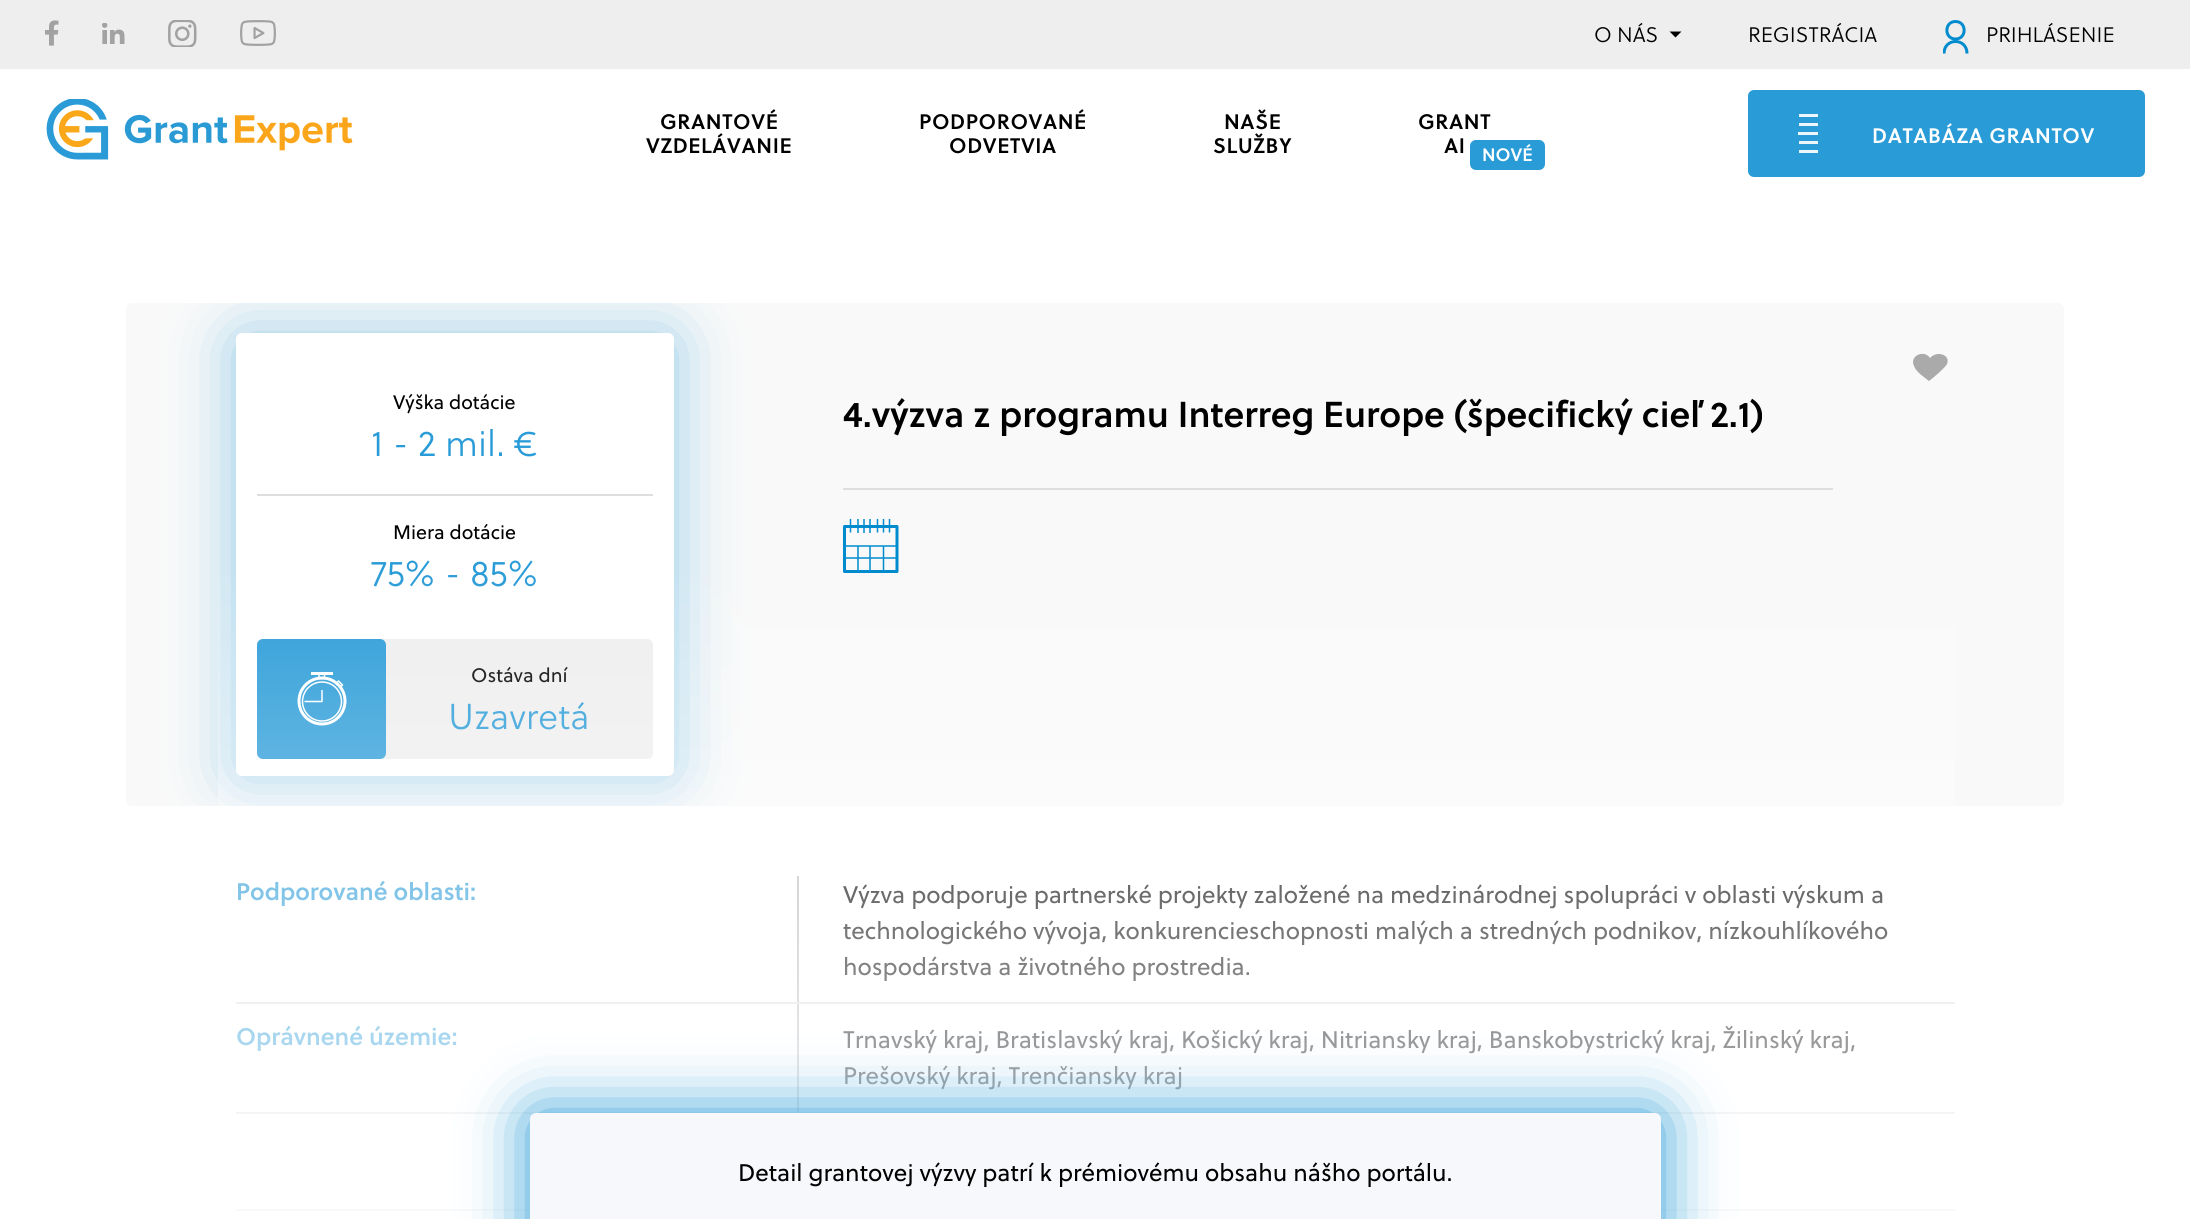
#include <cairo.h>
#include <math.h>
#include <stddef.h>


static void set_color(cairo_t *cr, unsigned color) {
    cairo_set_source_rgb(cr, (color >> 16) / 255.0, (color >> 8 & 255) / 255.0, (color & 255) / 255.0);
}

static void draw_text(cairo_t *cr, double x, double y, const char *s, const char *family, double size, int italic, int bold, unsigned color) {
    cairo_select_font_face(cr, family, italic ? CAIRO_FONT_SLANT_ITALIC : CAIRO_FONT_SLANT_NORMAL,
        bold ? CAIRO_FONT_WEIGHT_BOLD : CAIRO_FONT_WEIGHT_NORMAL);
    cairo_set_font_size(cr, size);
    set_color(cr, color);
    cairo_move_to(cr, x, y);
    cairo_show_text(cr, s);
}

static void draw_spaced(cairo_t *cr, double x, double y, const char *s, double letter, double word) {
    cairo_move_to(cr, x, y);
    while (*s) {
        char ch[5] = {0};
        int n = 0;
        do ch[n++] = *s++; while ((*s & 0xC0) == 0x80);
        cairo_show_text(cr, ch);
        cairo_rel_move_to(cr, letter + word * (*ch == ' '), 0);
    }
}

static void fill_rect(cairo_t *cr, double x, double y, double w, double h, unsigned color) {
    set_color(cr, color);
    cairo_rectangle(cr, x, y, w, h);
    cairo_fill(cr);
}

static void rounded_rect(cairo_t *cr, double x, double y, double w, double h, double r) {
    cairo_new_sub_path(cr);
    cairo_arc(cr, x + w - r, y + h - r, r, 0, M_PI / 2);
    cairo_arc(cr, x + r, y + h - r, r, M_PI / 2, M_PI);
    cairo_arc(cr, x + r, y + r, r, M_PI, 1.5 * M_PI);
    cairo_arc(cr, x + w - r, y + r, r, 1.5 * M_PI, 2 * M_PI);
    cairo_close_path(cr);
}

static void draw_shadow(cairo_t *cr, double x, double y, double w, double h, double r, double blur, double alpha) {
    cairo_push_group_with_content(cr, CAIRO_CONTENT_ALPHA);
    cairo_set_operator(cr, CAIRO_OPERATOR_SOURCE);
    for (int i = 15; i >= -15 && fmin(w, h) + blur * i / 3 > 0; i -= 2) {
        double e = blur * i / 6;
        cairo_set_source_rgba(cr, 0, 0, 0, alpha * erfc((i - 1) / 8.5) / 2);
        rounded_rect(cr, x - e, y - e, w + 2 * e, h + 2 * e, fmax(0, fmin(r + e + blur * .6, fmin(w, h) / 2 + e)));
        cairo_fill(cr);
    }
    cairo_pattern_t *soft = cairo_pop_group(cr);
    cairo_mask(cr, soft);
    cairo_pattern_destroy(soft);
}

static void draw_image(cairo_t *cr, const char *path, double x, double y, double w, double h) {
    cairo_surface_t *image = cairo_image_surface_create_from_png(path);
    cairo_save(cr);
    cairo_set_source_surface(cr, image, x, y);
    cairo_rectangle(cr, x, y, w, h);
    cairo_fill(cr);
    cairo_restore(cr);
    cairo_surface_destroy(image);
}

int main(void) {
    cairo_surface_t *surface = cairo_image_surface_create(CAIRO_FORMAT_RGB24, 2190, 1219);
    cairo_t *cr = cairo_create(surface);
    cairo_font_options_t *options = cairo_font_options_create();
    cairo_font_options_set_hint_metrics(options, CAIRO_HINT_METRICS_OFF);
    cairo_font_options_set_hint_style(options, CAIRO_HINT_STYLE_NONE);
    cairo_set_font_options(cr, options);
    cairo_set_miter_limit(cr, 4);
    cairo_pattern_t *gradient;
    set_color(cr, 0xFFFFFF);
    cairo_paint(cr);
    fill_rect(cr, 0, 0, 2190, 69, 0xEEEEEE);
    draw_image(cr, "assets/img1.png", 45, 20, 14, 26);
    draw_image(cr, "assets/img2.png", 102, 23, 23, 21);
    draw_image(cr, "assets/img3.png", 168, 20, 29, 27);
    draw_image(cr, "assets/img4.png", 240, 20, 36, 26);
    draw_text(cr, 1594, 42, "O NÁS", "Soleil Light", 21, 0, 0, 0x000000);
    cairo_new_path(cr);
    cairo_move_to(cr, 1669.5, 31.5);
    cairo_line_to(cr, 1681.5, 31.5);
    cairo_line_to(cr, 1675.5, 37.5);
    cairo_close_path(cr);
    cairo_fill(cr);
    draw_text(cr, 1748, 42, "REGISTRÁCIA", "Soleil Light", 21, 0, 0, 0x000000);
    draw_text(cr, 1986, 42, "PRIHLÁSENIE", "Soleil Light", 21, 0, 0, 0x000000);
    cairo_save(cr);
    cairo_rectangle(cr, 1943, 20, 27, 34);
    cairo_clip(cr);
    cairo_new_path(cr);
    cairo_move_to(cr, 1944, 53.5);
    cairo_curve_to(cr, 1944, 37.5, 1967, 37.5, 1967, 53.5);
    set_color(cr, 0x008BCE);
    cairo_set_line_width(cr, 3);
    cairo_set_line_join(cr, CAIRO_LINE_JOIN_ROUND);
    cairo_stroke(cr);
    cairo_restore(cr);
    cairo_new_path(cr);
    cairo_move_to(cr, 1955.5, 21.5);
    cairo_curve_to(cr, 1967, 21.5, 1967, 39, 1955.5, 39);
    cairo_curve_to(cr, 1944, 39, 1944, 21.5, 1955.5, 21.5);
    cairo_close_path(cr);
    set_color(cr, 0x008BCE);
    cairo_set_line_width(cr, 3);
    cairo_set_line_join(cr, CAIRO_LINE_JOIN_ROUND);
    cairo_stroke(cr);
    draw_image(cr, "assets/img5.png", 46, 99, 307, 61);
    cairo_select_font_face(cr, "Soleil SemiBold", CAIRO_FONT_SLANT_NORMAL, CAIRO_FONT_WEIGHT_NORMAL);
    set_color(cr, 0x000000);
    draw_spaced(cr, 660, 129, "GRANTOVÉ", 0.6, 0);
    draw_spaced(cr, 646, 153, "VZDELÁVANIE", 0.6, 0);
    draw_spaced(cr, 919, 129, "PODPOROVANÉ", 0.6, 0);
    draw_spaced(cr, 949, 153, "ODVETVIA", 0.6, 0);
    draw_spaced(cr, 1224, 129, "NAŠE", 0.6, 0);
    draw_spaced(cr, 1213, 153, "SLUŽBY", 0.6, 0);
    draw_spaced(cr, 1418, 129, "GRANT", 0.6, 0);
    draw_spaced(cr, 1444, 153, "AI", 0.6, 0);
    set_color(cr, 0x299BD7);
    rounded_rect(cr, 1470, 140, 75, 30, 6);
    cairo_fill(cr);
    draw_text(cr, 1482, 161, "NOVÉ", "Soleil SemiBold", 18, 0, 0, 0xFFFFFF);
    set_color(cr, 0x299BD7);
    rounded_rect(cr, 1748, 90, 397, 87, 6);
    cairo_fill(cr);
    fill_rect(cr, 1799, 114, 19, 3, 0xECF6FB);
    fill_rect(cr, 1799, 123, 19, 3, 0xECF6FB);
    fill_rect(cr, 1798, 132, 20, 3, 0xECF6FB);
    fill_rect(cr, 1799, 141, 19, 3, 0xECF6FB);
    fill_rect(cr, 1799, 150, 19, 3, 0xECF6FB);
    cairo_set_font_size(cr, 21);
    set_color(cr, 0xFFFFFF);
    draw_spaced(cr, 1872, 143, "DATABÁZA GRANTOV", 0.6, 0);
    set_color(cr, 0xF9F9F9);
    rounded_rect(cr, 126, 303, 1938, 503, 6);
    cairo_fill(cr);
    cairo_save(cr);
    cairo_rectangle(cr, 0, 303, 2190, 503);
    cairo_clip(cr);
    set_color(cr, 0x299BD7);
    draw_shadow(cr, 236, 336, 438, 443, 6, 31.5, 0.5);
    cairo_restore(cr);
    set_color(cr, 0xFFFFFF);
    rounded_rect(cr, 236, 333, 438, 443, 6);
    cairo_fill(cr);
    draw_text(cr, 393, 409, "Výška dotácie", "Soleil", 19.5, 0, 0, 0x000000);
    draw_text(cr, 371, 456, "1 - 2 mil. €", "Soleil Light", 36, 0, 0, 0x299BD7);
    fill_rect(cr, 257, 494, 396, 2, 0xDEDEDE);
    draw_text(cr, 393, 539, "Miera dotácie", "Soleil", 19.5, 0, 0, 0x000000);
    draw_text(cr, 371, 586, "75% - 85%", "Soleil Light", 36, 0, 0, 0x299BD7);
    set_color(cr, 0xEEEEEE);
    rounded_rect(cr, 257, 639, 396, 120, 6);
    cairo_fill(cr);
    set_color(cr, 0x299BD7);
    rounded_rect(cr, 257, 639, 129, 120, 6);
    cairo_fill(cr);
    cairo_arc(cr, 322, 701, 23, 0, 2 * M_PI);
    set_color(cr, 0xFFFFFF);
    cairo_set_line_join(cr, CAIRO_LINE_JOIN_MITER);
    cairo_stroke(cr);
    cairo_arc(cr, 322, 701.5, 19.5, 0, 2 * M_PI);
    cairo_set_line_width(cr, 1.5);
    cairo_stroke(cr);
    cairo_new_path(cr);
    cairo_move_to(cr, 304.5, 701.5);
    cairo_line_to(cr, 322, 701.5);
    cairo_line_to(cr, 322, 690);
    cairo_move_to(cr, 319, 673);
    cairo_line_to(cr, 324.5, 673);
    cairo_line_to(cr, 324.5, 678.5);
    cairo_line_to(cr, 319, 678.5);
    cairo_close_path(cr);
    cairo_move_to(cr, 338.5, 681);
    cairo_line_to(cr, 342.5, 685);
    cairo_line_to(cr, 340, 687.5);
    cairo_line_to(cr, 336, 683.5);
    cairo_close_path(cr);
    cairo_set_line_join(cr, CAIRO_LINE_JOIN_ROUND);
    cairo_stroke(cr);
    fill_rect(cr, 311, 672, 22, 3, 0xFFFFFF);
    draw_text(cr, 471, 682, "Ostáva dní", "Soleil", 19.5, 0, 0, 0x000000);
    draw_text(cr, 448, 729, "Uzavretá", "Soleil Light", 36, 0, 0, 0x299BD7);
    set_color(cr, 0xAAAAAA);
    cairo_new_path(cr);
    cairo_move_to(cr, 1929, 381);
    cairo_curve_to(cr, 1924, 377, 1916, 372, 1914, 366);
    cairo_curve_to(cr, 1909, 356, 1924, 349, 1930, 358);
    cairo_curve_to(cr, 1937, 350, 1951, 355, 1947, 364);
    cairo_curve_to(cr, 1945, 368, 1933, 378, 1929, 381);
    cairo_close_path(cr);
    cairo_fill(cr);
    draw_text(cr, 843, 427, "4.výzva z programu Interreg Europe (špecifický cieľ 2.1)", "Soleil SemiBold", 36, 0, 0, 0x000000);
    fill_rect(cr, 843, 488, 990, 2, 0xDEDEDE);
    draw_image(cr, "assets/img6.png", 843, 519, 56, 54);
    draw_text(cr, 236, 900, "Podporované oblasti:", "Soleil SemiBold", 24, 0, 0, 0x299BD7);
    fill_rect(cr, 797, 876, 2, 126, 0xBBBBBB);
    draw_text(cr, 843, 903, "Výzva podporuje partnerské projekty založené na medzinárodnej spolupráci v oblasti výskum a", "Soleil", 24, 0, 0, 0x000000);
    draw_text(cr, 843, 939, "technologického vývoja, konkurencieschopnosti malých a stredných podnikov, nízkouhlíkového", "Soleil", 24, 0, 0, 0x000000);
    draw_text(cr, 843, 975, "hospodárstva a životného prostredia.", "Soleil", 24, 0, 0, 0x000000);
    fill_rect(cr, 236, 1002, 1719, 2, 0xDEDEDE);
    draw_text(cr, 236, 1045, "Oprávnené územie:", "Soleil SemiBold", 24, 0, 0, 0x299BD7);
    fill_rect(cr, 797, 1004, 2, 108, 0xBBBBBB);
    draw_text(cr, 843, 1048, "Trnavský kraj, Bratislavský kraj, Košický kraj, Nitriansky kraj, Banskobystrický kraj, Žilinský kraj,", "Soleil", 24, 0, 0, 0x000000);
    draw_text(cr, 843, 1084, "Prešovský kraj, Trenčiansky kraj", "Soleil", 24, 0, 0, 0x000000);
    fill_rect(cr, 236, 1112, 1719, 2, 0xDEDEDE);
    fill_rect(cr, 236, 1209, 1719, 2, 0xDEDEDE);
    gradient = cairo_pattern_create_linear(1095, 558, 1095, 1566);
    cairo_pattern_add_color_stop_rgba(gradient, 0, 1, 1, 1, 0);
    cairo_pattern_add_color_stop_rgba(gradient, 0.8, 1, 1, 1, 1);
    cairo_set_source(cr, gradient);
    cairo_pattern_destroy(gradient);
    cairo_rectangle(cr, 218, 575, 1737, 636);
    cairo_fill(cr);
    set_color(cr, 0x299BD7);
    draw_shadow(cr, 530, 1113, 1131, 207, 6, 31.5, 1);
    set_color(cr, 0xF6F8FB);
    rounded_rect(cr, 531, 1114, 1129, 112, 5);
    cairo_fill_preserve(cr);
    cairo_set_line_width(cr, 2);
    cairo_set_line_join(cr, CAIRO_LINE_JOIN_MITER);
    cairo_stroke(cr);
    draw_text(cr, 738, 1181, "Detail grantovej výzvy patrí k prémiovému obsahu nášho portálu.", "Soleil", 24, 0, 0, 0x000000);
    cairo_surface_write_to_png(surface, "output.png");
    cairo_font_options_destroy(options);
    cairo_destroy(cr);
    cairo_surface_destroy(surface);
    return 0;
}
